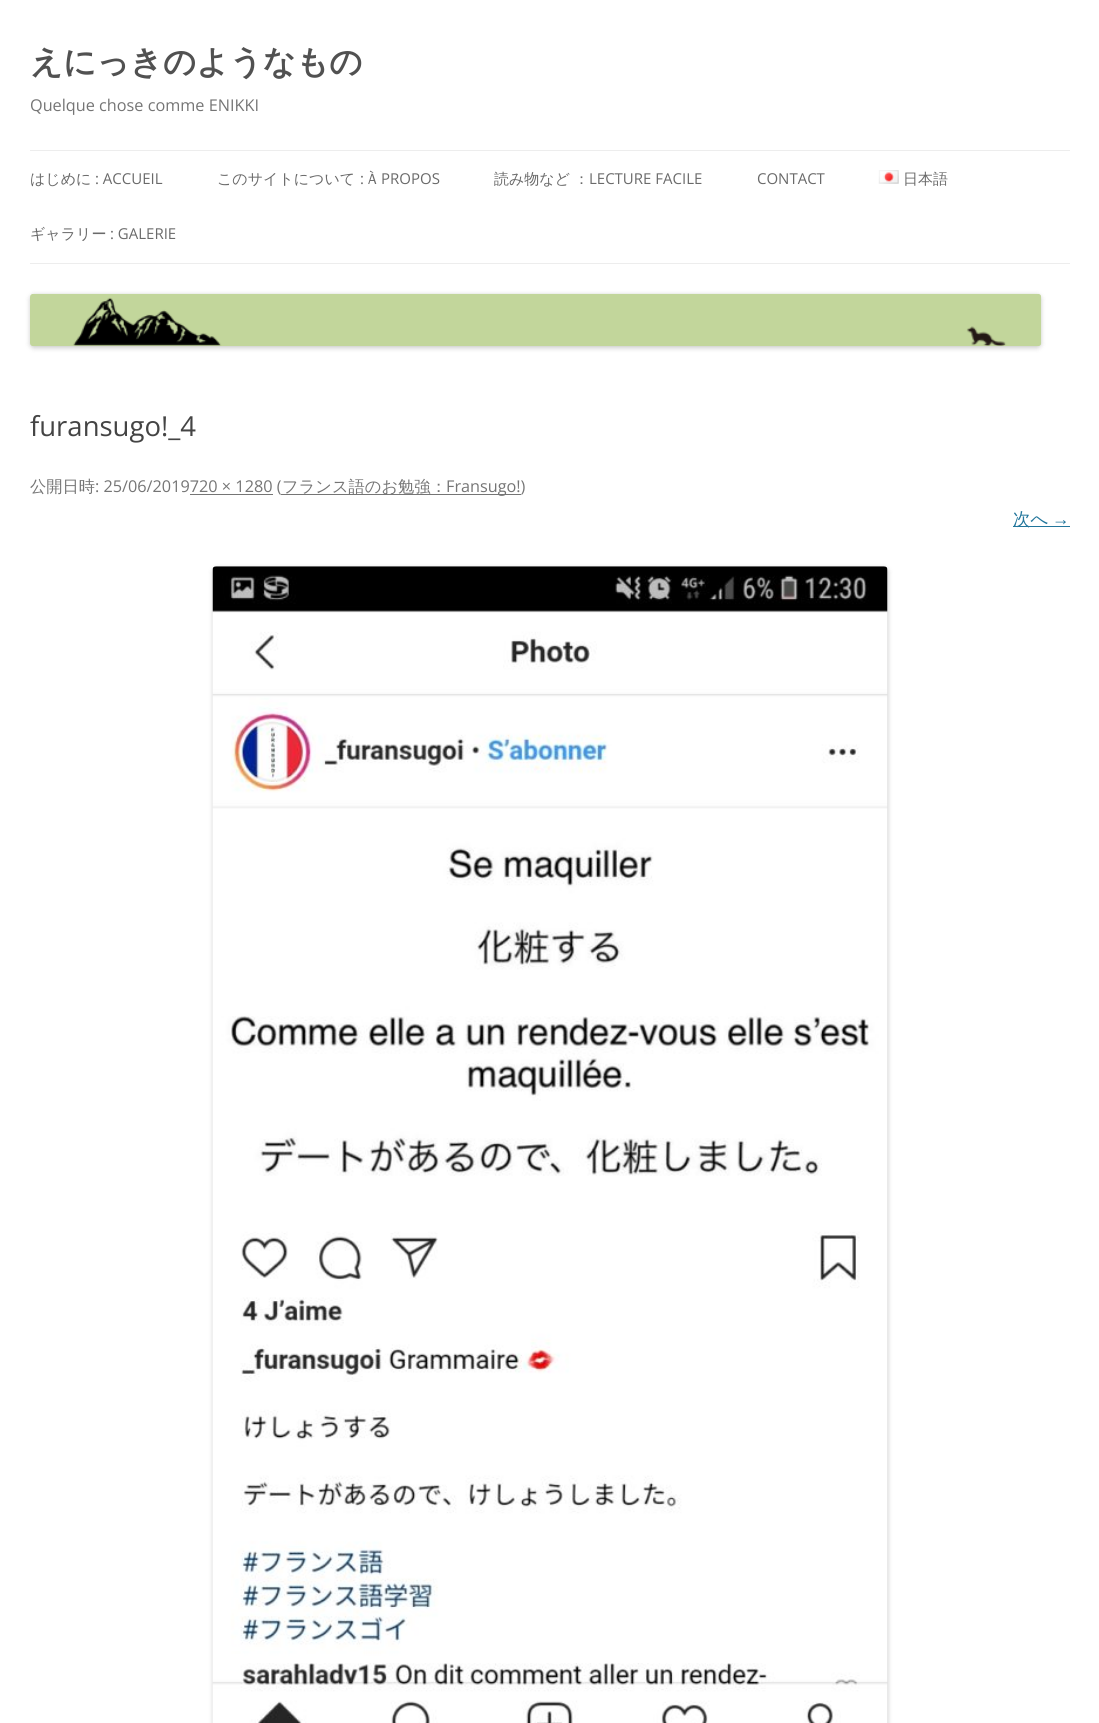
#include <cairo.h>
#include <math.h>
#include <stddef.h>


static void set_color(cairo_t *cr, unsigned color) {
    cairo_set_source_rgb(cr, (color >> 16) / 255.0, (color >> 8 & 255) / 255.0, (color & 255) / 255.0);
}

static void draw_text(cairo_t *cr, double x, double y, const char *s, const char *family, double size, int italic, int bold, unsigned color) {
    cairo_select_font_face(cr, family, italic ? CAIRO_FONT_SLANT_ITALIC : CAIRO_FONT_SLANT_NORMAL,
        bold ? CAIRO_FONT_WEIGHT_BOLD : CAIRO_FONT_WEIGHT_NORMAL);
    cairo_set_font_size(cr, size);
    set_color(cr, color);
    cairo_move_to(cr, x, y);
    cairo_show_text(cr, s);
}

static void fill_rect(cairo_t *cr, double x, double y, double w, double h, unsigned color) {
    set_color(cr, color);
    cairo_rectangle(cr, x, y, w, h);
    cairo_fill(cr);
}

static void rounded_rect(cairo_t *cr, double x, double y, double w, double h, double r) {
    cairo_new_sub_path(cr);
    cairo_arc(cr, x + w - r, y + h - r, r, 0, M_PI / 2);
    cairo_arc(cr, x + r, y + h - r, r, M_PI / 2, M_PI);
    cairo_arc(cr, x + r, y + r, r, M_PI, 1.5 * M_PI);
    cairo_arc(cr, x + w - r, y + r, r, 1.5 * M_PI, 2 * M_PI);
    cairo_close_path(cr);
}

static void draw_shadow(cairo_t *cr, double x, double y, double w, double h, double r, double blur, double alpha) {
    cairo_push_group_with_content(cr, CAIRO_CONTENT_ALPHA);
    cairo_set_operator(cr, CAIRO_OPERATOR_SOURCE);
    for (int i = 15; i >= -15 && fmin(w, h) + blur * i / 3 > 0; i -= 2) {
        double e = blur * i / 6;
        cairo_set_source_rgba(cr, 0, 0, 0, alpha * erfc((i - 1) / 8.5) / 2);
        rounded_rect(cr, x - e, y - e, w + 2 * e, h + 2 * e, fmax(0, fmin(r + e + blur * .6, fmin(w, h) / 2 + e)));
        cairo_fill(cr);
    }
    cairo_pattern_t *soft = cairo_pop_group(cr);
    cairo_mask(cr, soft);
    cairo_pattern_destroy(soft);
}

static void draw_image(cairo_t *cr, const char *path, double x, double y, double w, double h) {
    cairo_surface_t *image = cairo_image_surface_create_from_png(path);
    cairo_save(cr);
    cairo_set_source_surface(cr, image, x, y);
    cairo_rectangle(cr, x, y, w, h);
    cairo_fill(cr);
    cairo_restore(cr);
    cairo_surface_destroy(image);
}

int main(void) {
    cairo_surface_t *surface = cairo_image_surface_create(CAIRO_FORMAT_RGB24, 1099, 1723);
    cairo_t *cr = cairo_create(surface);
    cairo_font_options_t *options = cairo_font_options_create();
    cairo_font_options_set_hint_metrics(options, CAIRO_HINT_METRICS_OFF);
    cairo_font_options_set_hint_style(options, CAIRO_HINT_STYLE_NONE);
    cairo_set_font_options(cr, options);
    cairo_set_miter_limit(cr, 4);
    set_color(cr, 0xFFFFFF);
    cairo_paint(cr);
    draw_text(cr, 30, 73, "えにっきのようなもの", "WenQuanYi Zen Hei", 32.5, 0, 1, 0x515151);
    draw_text(cr, 30, 111, "Quelque chose comme ENIKKI", "Open Sans", 16.25, 0, 0, 0x757575);
    fill_rect(cr, 30, 150, 1040, 1, 0xEDEDED);
    fill_rect(cr, 30, 263, 1040, 1, 0xEDEDED);
    draw_text(cr, 30, 184, "はじめに", "WenQuanYi Zen Hei Medium", 15, 0, 0, 0x6A6A6A);
    draw_text(cr, 95, 184, ": ACCUEIL", "Open Sans", 15, 0, 0, 0x6A6A6A);
    draw_text(cr, 217, 184, "このサイトについて", "WenQuanYi Zen Hei Medium", 15, 0, 0, 0x6A6A6A);
    draw_text(cr, 360, 184, ":", "Open Sans", 15, 0, 0, 0x6A6A6A);
    draw_text(cr, 368, 184, "À", "WenQuanYi Zen Hei Medium", 15, 0, 0, 0x6A6A6A);
    draw_text(cr, 381, 184, "PROPOS", "Open Sans", 15, 0, 0, 0x6A6A6A);
    draw_text(cr, 494, 184, "読み物など", "WenQuanYi Zen Hei Medium", 15, 0, 0, 0x6A6A6A);
    draw_text(cr, 574, 184, "：", "WenQuanYi Zen Hei Medium", 15, 0, 0, 0x6A6A6A);
    draw_text(cr, 589, 184, "LECTURE FACILE", "Open Sans", 15, 0, 0, 0x6A6A6A);
    draw_text(cr, 757, 184, "CONTACT", "Open Sans", 15, 0, 0, 0x6A6A6A);
    draw_image(cr, "assets/img1.png", 878, 170, 21, 14);
    draw_text(cr, 903, 184, "日本語", "WenQuanYi Zen Hei Medium", 15, 0, 0, 0x6A6A6A);
    draw_text(cr, 30, 239, "ギャラリー", "WenQuanYi Zen Hei Medium", 15, 0, 0, 0x6A6A6A);
    draw_text(cr, 110, 239, ": GALERIE", "Open Sans", 15, 0, 0, 0x6A6A6A);
    set_color(cr, 0x000000);
    draw_shadow(cr, 30, 295, 1011, 53, 4, 2.5, 0.2);
    draw_image(cr, "assets/img2.png", 30, 293, 1012, 54);
    draw_text(cr, 30, 436, "furansugo!_4", "Open Sans", 27.5, 0, 0, 0x444444);
    draw_text(cr, 30, 492, "公開日時", "WenQuanYi Zen Hei Medium", 16.25, 0, 0, 0x757575);
    draw_text(cr, 95, 492, ": 25/06/2019720 × 1280 (", "Open Sans", 16.25, 0, 0, 0x757575);
    fill_rect(cr, 281, 494, 240, 1, 0x757575);
    draw_text(cr, 282, 492, "フランス語のお勉強：", "WenQuanYi Zen Hei Medium", 16.25, 0, 0, 0x757575);
    draw_text(cr, 446, 492, "Fransugo!)", "Open Sans", 16.25, 0, 0, 0x757575);
    fill_rect(cr, 190, 494, 83, 1, 0x757575);
    fill_rect(cr, 1013, 526, 57, 1, 0x21759B);
    draw_text(cr, 1013, 525, "次へ", "WenQuanYi Zen Hei Medium", 17.5, 0, 0, 0x21759B);
    draw_text(cr, 1052, 525, "→", "Liberation Sans", 17.5, 0, 0, 0x21759B);
    set_color(cr, 0x000000);
    draw_shadow(cr, 213, 568, 675, 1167, 4, 2.5, 0.2);
    draw_image(cr, "assets/img3.png", 212, 566, 676, 1157);
    cairo_surface_write_to_png(surface, "output.png");
    cairo_font_options_destroy(options);
    cairo_destroy(cr);
    cairo_surface_destroy(surface);
    return 0;
}
